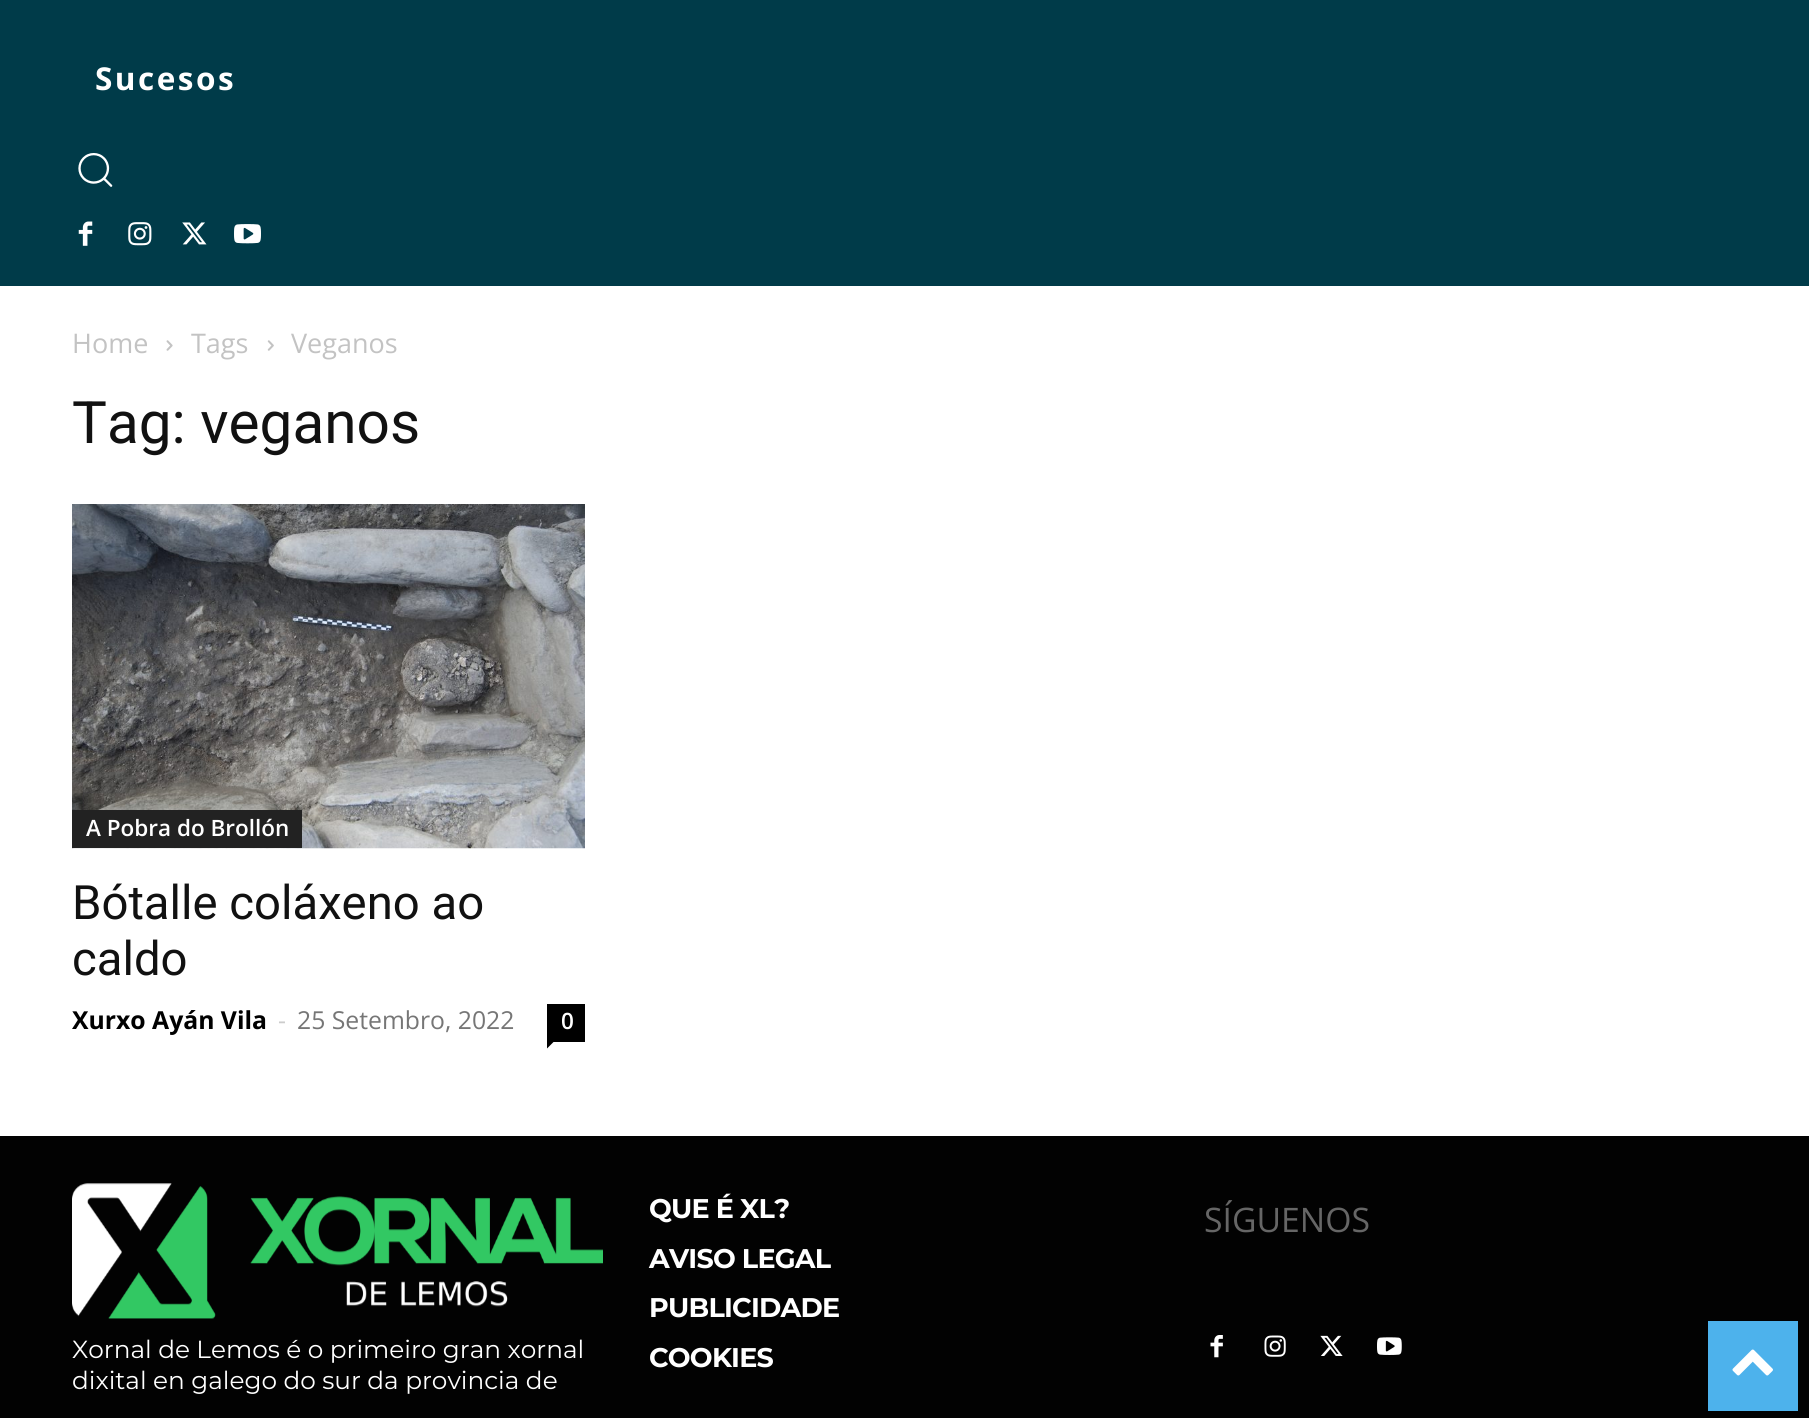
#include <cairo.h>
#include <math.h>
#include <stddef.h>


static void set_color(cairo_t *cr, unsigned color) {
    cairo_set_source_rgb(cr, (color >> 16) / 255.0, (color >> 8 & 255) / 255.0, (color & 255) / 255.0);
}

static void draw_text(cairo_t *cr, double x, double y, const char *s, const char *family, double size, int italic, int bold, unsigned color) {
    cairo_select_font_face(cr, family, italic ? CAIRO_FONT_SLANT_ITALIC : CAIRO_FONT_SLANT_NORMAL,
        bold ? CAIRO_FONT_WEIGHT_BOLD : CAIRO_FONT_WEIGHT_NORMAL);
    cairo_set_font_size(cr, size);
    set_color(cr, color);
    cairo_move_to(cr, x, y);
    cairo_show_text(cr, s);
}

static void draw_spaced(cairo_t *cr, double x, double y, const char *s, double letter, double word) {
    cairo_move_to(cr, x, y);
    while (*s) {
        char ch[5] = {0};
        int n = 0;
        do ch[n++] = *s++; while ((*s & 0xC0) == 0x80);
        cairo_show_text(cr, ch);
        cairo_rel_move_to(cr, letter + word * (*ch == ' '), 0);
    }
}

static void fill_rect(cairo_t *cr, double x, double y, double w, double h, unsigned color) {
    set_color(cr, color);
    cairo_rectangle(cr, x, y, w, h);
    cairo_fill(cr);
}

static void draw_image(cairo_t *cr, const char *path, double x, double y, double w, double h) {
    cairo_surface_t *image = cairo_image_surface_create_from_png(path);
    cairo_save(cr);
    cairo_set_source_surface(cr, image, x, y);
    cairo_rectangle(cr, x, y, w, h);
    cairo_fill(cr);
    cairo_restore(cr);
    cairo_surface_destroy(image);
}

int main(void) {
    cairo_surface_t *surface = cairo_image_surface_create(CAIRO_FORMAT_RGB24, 1809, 1418);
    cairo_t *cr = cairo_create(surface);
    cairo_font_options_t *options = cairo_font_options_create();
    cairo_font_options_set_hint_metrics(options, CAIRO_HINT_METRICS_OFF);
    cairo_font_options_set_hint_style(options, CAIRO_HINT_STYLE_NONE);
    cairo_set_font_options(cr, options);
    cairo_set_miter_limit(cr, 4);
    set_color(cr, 0xFFFFFF);
    cairo_paint(cr);
    fill_rect(cr, 0, 0, 1809, 286, 0x003B49);
    cairo_select_font_face(cr, "Open Sans", CAIRO_FONT_SLANT_NORMAL, CAIRO_FONT_WEIGHT_BOLD);
    cairo_set_font_size(cr, 31.5);
    set_color(cr, 0xFFFFFF);
    draw_spaced(cr, 95, 90, "Sucesos", 2.5, 0);
    draw_image(cr, "assets/img1.png", 78, 153, 35, 34);
    draw_image(cr, "assets/img2.png", 78, 221, 15, 25);
    draw_image(cr, "assets/img3.png", 128, 222, 24, 24);
    draw_image(cr, "assets/img4.png", 182, 222, 25, 23);
    draw_image(cr, "assets/img5.png", 234, 224, 27, 20);
    draw_text(cr, 72, 353, "Home", "Open Sans", 27, 0, 0, 0xC3C3C3);
    draw_image(cr, "assets/img6.png", 166, 340, 7, 11);
    draw_text(cr, 191, 353, "Tags", "Open Sans", 27, 0, 0, 0xC3C3C3);
    draw_image(cr, "assets/img7.png", 267, 340, 7, 11);
    draw_text(cr, 291, 353, "Veganos", "Open Sans", 27, 0, 0, 0xC3C3C3);
    draw_text(cr, 72, 443, "Tag: veganos", "Roboto", 58.5, 0, 0, 0x111111);
    draw_image(cr, "assets/img8.png", 72, 504, 513, 345);
    fill_rect(cr, 72, 810, 230, 38, 0x222222);
    draw_text(cr, 86, 836, "A Pobra do Brollón", "Open Sans SemiBold", 22.5, 0, 0, 0xFFFFFF);
    draw_text(cr, 72, 919, "Bótalle coláxeno ao", "Roboto", 47.25, 0, 0, 0x111111);
    draw_text(cr, 72, 975, "caldo", "Roboto", 47.25, 0, 0, 0x111111);
    draw_text(cr, 72, 1029, "Xurxo Ayán Vila", "Open Sans", 24.75, 0, 1, 0x000000);
    draw_text(cr, 278, 1029, "-", "Open Sans", 24.75, 0, 0, 0xCCCCCC);
    draw_text(cr, 297, 1029, "25 Setembro, 2022", "Open Sans", 24.75, 0, 0, 0x767676);
    fill_rect(cr, 547, 1004, 38, 38, 0x000000);
    draw_text(cr, 561, 1029, "0", "Open Sans SemiBold", 22.5, 0, 0, 0xFFFFFF);
    set_color(cr, 0x000000);
    cairo_new_path(cr);
    cairo_move_to(cr, 547, 1042);
    cairo_line_to(cr, 553.5, 1042);
    cairo_line_to(cr, 547, 1048.5);
    cairo_close_path(cr);
    cairo_fill(cr);
    fill_rect(cr, 0, 1136, 1809, 282, 0x020202);
    cairo_select_font_face(cr, "Montserrat", CAIRO_FONT_SLANT_NORMAL, CAIRO_FONT_WEIGHT_BOLD);
    cairo_set_font_size(cr, 27);
    set_color(cr, 0xFFFFFF);
    draw_spaced(cr, 649, 1218, "QUE É XL?", -0.75, 0);
    draw_spaced(cr, 649, 1268, "AVISO LEGAL", -0.75, 0);
    draw_spaced(cr, 649, 1317, "PUBLICIDADE", -0.75, 0);
    draw_spaced(cr, 649, 1367, "COOKIES", -0.75, 0);
    draw_text(cr, 1204, 1232, "SÍGUENOS", "Open Sans", 33.75, 0, 0, 0x666666);
    draw_image(cr, "assets/img9.png", 1210, 1335, 13, 23);
    draw_image(cr, "assets/img10.png", 1264, 1335, 22, 22);
    draw_image(cr, "assets/img11.png", 1320, 1335, 23, 21);
    draw_image(cr, "assets/img12.png", 1377, 1337, 25, 18);
    draw_image(cr, "assets/img13.png", 72, 1183, 531, 136);
    draw_text(cr, 72, 1358, "Xornal de Lemos é o primeiro gran xornal", "Montserrat", 24.75, 0, 0, 0xFFFFFF);
    draw_text(cr, 72, 1389, "dixital en galego do sur da provincia de", "Montserrat", 24.75, 0, 0, 0xFFFFFF);
    fill_rect(cr, 1708, 1321, 90, 90, 0x4DB2EC);
    draw_image(cr, "assets/img14.png", 1732, 1349, 41, 27);
    cairo_surface_write_to_png(surface, "output.png");
    cairo_font_options_destroy(options);
    cairo_destroy(cr);
    cairo_surface_destroy(surface);
    return 0;
}
